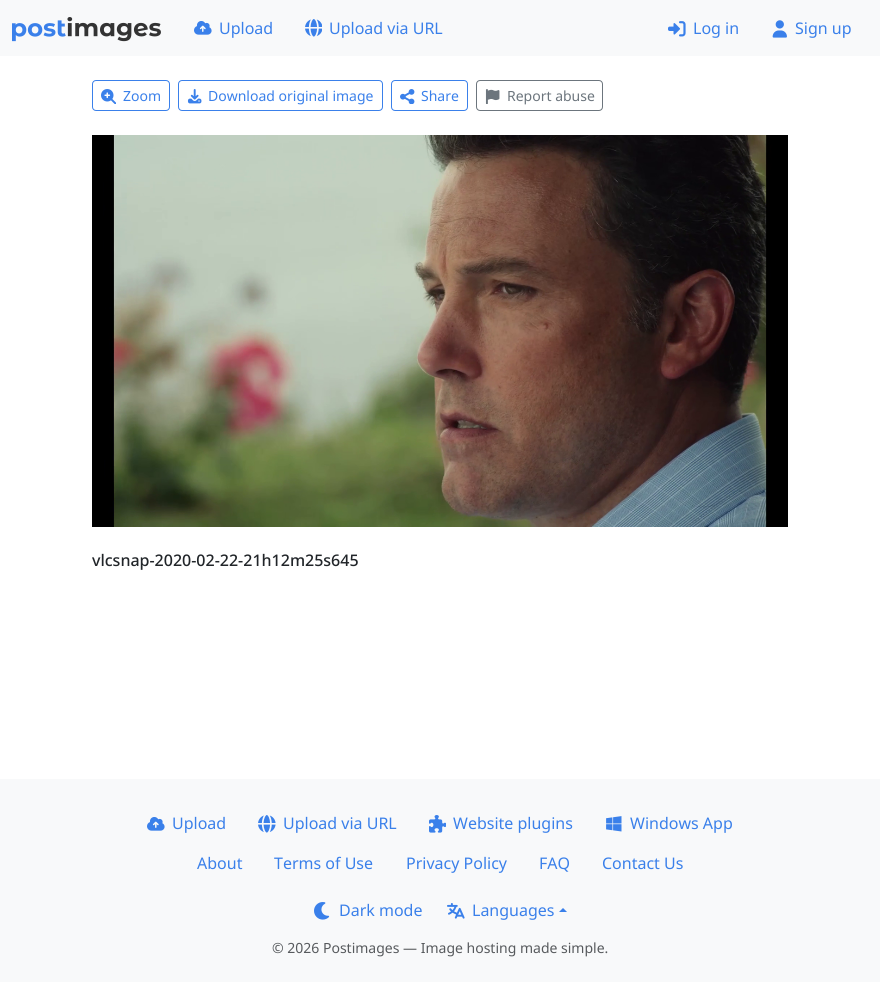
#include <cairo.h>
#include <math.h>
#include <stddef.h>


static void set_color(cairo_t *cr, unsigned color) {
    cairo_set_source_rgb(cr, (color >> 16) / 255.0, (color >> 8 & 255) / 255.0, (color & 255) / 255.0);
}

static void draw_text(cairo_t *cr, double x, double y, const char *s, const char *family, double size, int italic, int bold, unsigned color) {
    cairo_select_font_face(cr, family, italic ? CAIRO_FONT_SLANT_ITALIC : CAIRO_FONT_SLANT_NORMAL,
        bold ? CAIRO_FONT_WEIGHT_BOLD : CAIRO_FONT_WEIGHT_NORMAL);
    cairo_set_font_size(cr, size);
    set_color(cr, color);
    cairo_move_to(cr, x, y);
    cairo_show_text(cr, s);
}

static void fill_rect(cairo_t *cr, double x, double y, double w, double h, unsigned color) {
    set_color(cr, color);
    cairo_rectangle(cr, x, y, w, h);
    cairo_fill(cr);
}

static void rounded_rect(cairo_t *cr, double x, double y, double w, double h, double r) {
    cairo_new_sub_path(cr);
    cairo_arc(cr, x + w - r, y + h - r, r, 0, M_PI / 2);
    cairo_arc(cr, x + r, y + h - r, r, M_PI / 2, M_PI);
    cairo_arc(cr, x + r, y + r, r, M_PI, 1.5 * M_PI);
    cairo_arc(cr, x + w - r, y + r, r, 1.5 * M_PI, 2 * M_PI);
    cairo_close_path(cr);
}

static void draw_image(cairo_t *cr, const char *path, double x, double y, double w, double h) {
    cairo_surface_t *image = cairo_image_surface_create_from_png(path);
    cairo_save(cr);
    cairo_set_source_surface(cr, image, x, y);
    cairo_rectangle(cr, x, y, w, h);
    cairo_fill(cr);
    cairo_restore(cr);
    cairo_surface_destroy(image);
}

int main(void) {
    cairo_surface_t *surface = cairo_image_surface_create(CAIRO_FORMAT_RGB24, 880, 982);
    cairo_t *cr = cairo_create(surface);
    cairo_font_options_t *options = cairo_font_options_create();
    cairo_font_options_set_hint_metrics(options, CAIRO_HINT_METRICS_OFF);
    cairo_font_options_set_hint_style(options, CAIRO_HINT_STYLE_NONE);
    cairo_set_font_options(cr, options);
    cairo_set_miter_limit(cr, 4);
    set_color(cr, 0xFFFFFF);
    cairo_paint(cr);
    fill_rect(cr, 0, 0, 880, 56, 0xF8F9FA);
    draw_image(cr, "assets/img1.png", 12, 17, 149, 25);
    draw_image(cr, "assets/img2.png", 194, 21, 18, 14);
    draw_text(cr, 219, 34, "Upload", "Noto Sans", 16, 0, 0, 0x3A80EA);
    draw_image(cr, "assets/img3.png", 305, 19, 17, 18);
    draw_text(cr, 329, 34, "Upload via URL", "Noto Sans", 16, 0, 0, 0x3A80EA);
    draw_image(cr, "assets/img4.png", 668, 21, 18, 16);
    draw_text(cr, 693, 34, "Log in", "Noto Sans", 16, 0, 0, 0x3A80EA);
    draw_image(cr, "assets/img5.png", 772, 20, 15, 18);
    draw_text(cr, 795, 34, "Sign up", "Noto Sans", 16, 0, 0, 0x3A80EA);
    rounded_rect(cr, 92.5, 80.5, 77, 30, 3.5);
    cairo_set_line_width(cr, 1);
    cairo_stroke(cr);
    draw_image(cr, "assets/img6.png", 101, 89, 15, 15);
    draw_text(cr, 123, 101, "Zoom", "Noto Sans", 14, 0, 0, 0x3A80EA);
    rounded_rect(cr, 178.5, 80.5, 204, 30, 3.5);
    cairo_stroke(cr);
    draw_image(cr, "assets/img7.png", 187, 89, 15, 15);
    draw_text(cr, 208, 101, "Download original image", "Noto Sans", 14, 0, 0, 0x3A80EA);
    rounded_rect(cr, 391.5, 80.5, 76, 30, 3.5);
    cairo_stroke(cr);
    draw_image(cr, "assets/img8.png", 400, 89, 15, 15);
    draw_text(cr, 421, 101, "Share", "Noto Sans", 14, 0, 0, 0x3A80EA);
    rounded_rect(cr, 476.5, 80.5, 126, 30, 3.5);
    set_color(cr, 0x6C757D);
    cairo_stroke(cr);
    draw_image(cr, "assets/img9.png", 485, 89, 15, 15);
    draw_text(cr, 507, 101, "Report abuse", "Noto Sans", 14, 0, 0, 0x6C757D);
    draw_image(cr, "assets/img10.png", 92, 135, 696, 392);
    draw_text(cr, 92, 566, "vlcsnap-2020-02-22-21h12m25s645", "Noto Sans Medium", 16, 0, 0, 0x212529);
    fill_rect(cr, 0, 779, 880, 203, 0xF8F9FA);
    draw_image(cr, "assets/img2.png", 147, 817, 18, 14);
    draw_text(cr, 172, 829, "Upload", "Noto Sans", 16, 0, 0, 0x3A80EA);
    draw_image(cr, "assets/img11.png", 258, 815, 18, 18);
    draw_text(cr, 283, 829, "Upload via URL", "Noto Sans", 16, 0, 0, 0x3A80EA);
    draw_image(cr, "assets/img12.png", 429, 815, 17, 18);
    draw_text(cr, 453, 829, "Website plugins", "Noto Sans", 16, 0, 0, 0x3A80EA);
    draw_image(cr, "assets/img13.png", 606, 816, 16, 16);
    draw_text(cr, 630, 829, "Windows App", "Noto Sans", 16, 0, 0, 0x3A80EA);
    draw_text(cr, 197, 869, "About", "Noto Sans", 16, 0, 0, 0x3A80EA);
    draw_text(cr, 274, 869, "Terms of Use", "Noto Sans", 16, 0, 0, 0x3A80EA);
    draw_text(cr, 406, 869, "Privacy Policy", "Noto Sans", 16, 0, 0, 0x3A80EA);
    draw_text(cr, 539, 869, "FAQ", "Noto Sans", 16, 0, 0, 0x3A80EA);
    draw_text(cr, 602, 869, "Contact Us", "Noto Sans", 16, 0, 0, 0x3A80EA);
    draw_image(cr, "assets/img14.png", 314, 902, 16, 18);
    draw_text(cr, 339, 916, "Dark mode", "Noto Sans", 16, 0, 0, 0x3A80EA);
    draw_image(cr, "assets/img15.png", 447, 903, 18, 16);
    draw_text(cr, 472, 916, "Languages", "Noto Sans", 16, 0, 0, 0x3A80EA);
    cairo_new_path(cr);
    cairo_move_to(cr, 567, 912);
    cairo_line_to(cr, 559, 912);
    cairo_line_to(cr, 563, 908);
    cairo_close_path(cr);
    cairo_fill(cr);
    draw_text(cr, 272, 953, "© 2026 Postimages — Image hosting made simple.", "Noto Sans", 14, 0, 0, 0x575A5D);
    cairo_surface_write_to_png(surface, "output.png");
    cairo_font_options_destroy(options);
    cairo_destroy(cr);
    cairo_surface_destroy(surface);
    return 0;
}
